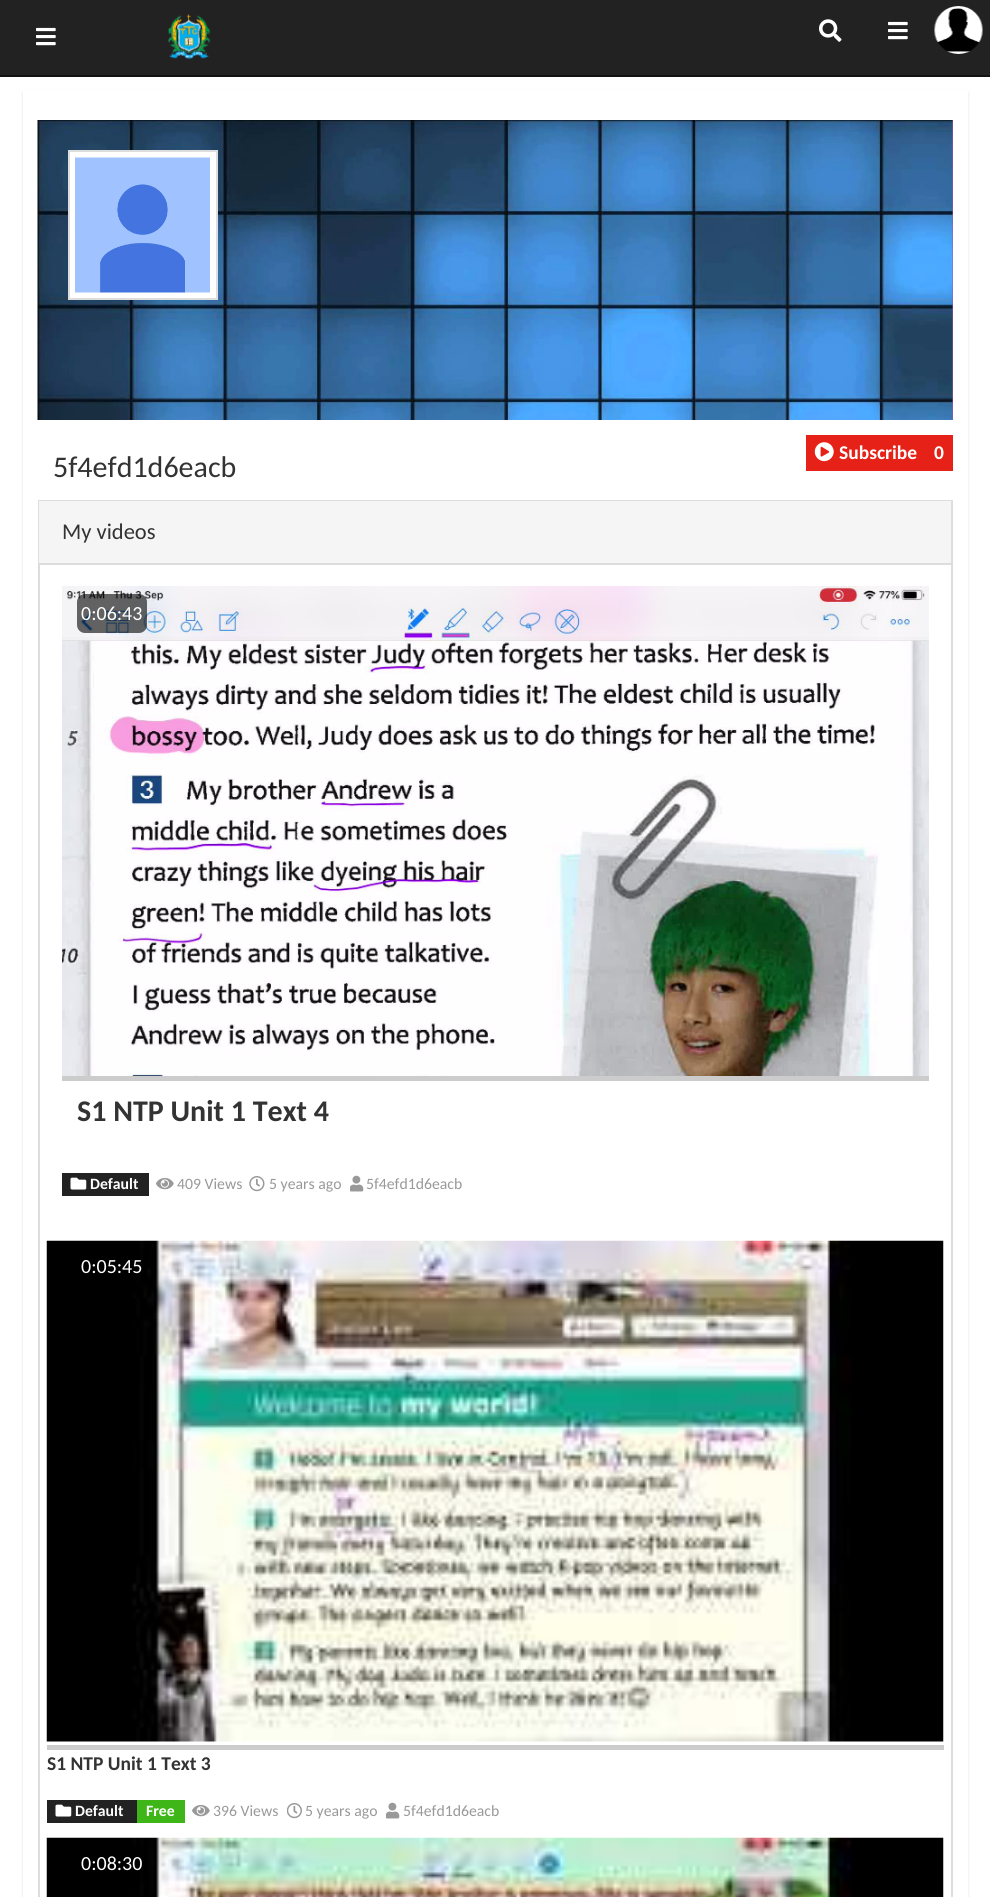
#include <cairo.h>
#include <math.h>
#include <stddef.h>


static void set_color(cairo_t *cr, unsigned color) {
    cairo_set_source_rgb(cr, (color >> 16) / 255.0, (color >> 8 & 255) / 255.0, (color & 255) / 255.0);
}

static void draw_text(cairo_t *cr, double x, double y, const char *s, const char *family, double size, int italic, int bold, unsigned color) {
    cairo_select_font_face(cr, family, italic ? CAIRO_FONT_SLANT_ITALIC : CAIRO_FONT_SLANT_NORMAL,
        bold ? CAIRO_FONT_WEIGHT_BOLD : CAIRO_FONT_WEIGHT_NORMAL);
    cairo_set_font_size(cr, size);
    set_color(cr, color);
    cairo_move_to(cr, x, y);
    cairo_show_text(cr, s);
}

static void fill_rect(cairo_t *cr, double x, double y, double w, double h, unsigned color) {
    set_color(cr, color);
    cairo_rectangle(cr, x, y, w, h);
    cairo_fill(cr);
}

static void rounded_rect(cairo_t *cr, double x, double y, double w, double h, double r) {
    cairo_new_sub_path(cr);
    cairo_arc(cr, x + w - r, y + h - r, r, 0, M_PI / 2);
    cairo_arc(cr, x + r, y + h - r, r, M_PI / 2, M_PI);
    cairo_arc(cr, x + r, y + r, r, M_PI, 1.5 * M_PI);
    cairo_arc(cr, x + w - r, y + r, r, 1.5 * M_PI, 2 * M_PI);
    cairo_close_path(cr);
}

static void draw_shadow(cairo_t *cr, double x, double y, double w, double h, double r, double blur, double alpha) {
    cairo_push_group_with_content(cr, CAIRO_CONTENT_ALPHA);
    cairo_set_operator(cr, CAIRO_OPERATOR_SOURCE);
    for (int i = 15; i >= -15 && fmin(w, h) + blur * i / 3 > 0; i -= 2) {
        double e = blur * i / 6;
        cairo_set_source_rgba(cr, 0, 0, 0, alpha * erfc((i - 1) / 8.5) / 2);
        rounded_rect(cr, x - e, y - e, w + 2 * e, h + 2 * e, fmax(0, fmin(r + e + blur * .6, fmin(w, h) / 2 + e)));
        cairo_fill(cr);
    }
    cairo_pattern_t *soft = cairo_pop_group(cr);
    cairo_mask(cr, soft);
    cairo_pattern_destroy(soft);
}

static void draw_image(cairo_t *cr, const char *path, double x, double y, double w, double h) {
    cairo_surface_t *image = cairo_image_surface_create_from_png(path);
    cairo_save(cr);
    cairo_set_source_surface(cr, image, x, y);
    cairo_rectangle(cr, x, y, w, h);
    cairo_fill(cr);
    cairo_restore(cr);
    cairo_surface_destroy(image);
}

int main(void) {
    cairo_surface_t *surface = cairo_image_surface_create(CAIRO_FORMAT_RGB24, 990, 1897);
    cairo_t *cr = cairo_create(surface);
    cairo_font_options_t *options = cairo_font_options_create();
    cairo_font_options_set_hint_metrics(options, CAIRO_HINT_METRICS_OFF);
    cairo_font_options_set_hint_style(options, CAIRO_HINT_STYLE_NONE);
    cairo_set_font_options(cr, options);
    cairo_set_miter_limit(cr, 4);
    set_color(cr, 0xFFFFFF);
    cairo_paint(cr);
    fill_rect(cr, 0, 0, 990, 75, 0x222222);
    fill_rect(cr, 0, 75, 990, 2, 0x121212);
    draw_image(cr, "assets/img1.png", 36, 27, 20, 19);
    draw_image(cr, "assets/img2.png", 167, 14, 44, 46);
    draw_image(cr, "assets/img3.png", 819, 19, 23, 23);
    draw_image(cr, "assets/img1.png", 888, 21, 20, 19);
    draw_image(cr, "assets/img4.png", 934, 6, 49, 48);
    set_color(cr, 0x000000);
    draw_shadow(cr, 23, 92, 945, 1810, 0, 1.5, 0.1);
    fill_rect(cr, 23, 90, 945, 1807, 0xFFFFFF);
    fill_rect(cr, 952, 120, 1, 300, 0x9954BB);
    draw_image(cr, "assets/img5.png", 37, 120, 916, 300);
    set_color(cr, 0xFFFFFF);
    cairo_rectangle(cr, 69, 151, 148, 148);
    cairo_fill_preserve(cr);
    set_color(cr, 0xDDDDDD);
    cairo_stroke(cr);
    draw_image(cr, "assets/img6.png", 75, 157, 135, 136);
    fill_rect(cr, 806, 435, 147, 36, 0xE62117);
    draw_image(cr, "assets/img7.png", 814, 442, 20, 20);
    draw_text(cr, 839, 459, "Subscribe", "Carlito", 19.5, 0, 1, 0xFFFFFF);
    draw_text(cr, 934, 459, "0", "Carlito", 19.5, 0, 1, 0xFFFFFF);
    draw_text(cr, 53, 477, "5f4efd1d6eacb", "Carlito", 30, 0, 0, 0x333333);
    cairo_rectangle(cr, 39, 501, 913, 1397);
    set_color(cr, 0xDDDDDD);
    cairo_stroke(cr);
    fill_rect(cr, 39, 501, 912, 62, 0xF5F5F5);
    fill_rect(cr, 39, 563, 912, 2, 0xDDDDDD);
    draw_text(cr, 62, 539, "My videos", "Carlito", 22.5, 0, 0, 0x333333);
    draw_image(cr, "assets/img8.png", 62, 586, 867, 490);
    cairo_set_source_rgba(cr, 0, 0, 0, 0.6);
    rounded_rect(cr, 77, 594, 70, 39, 8);
    cairo_fill(cr);
    draw_text(cr, 81, 620, "0:06:43", "Carlito", 20, 0, 0, 0xFFFFFF);
    fill_rect(cr, 62, 1076, 867, 5, 0xCCCCCC);
    draw_text(cr, 77, 1121, "S1 NTP Unit 1 Text 4", "Carlito", 30, 0, 1, 0x333333);
    fill_rect(cr, 62, 1173, 87, 23, 0x222222);
    draw_image(cr, "assets/img9.png", 70, 1177, 17, 13);
    draw_text(cr, 90, 1189, "Default", "Carlito", 15.75, 0, 1, 0xFFFFFF);
    draw_image(cr, "assets/img10.png", 156, 1177, 18, 13);
    draw_text(cr, 177, 1189, "409 Views", "Carlito", 15.75, 0, 0, 0x999999);
    draw_image(cr, "assets/img11.png", 249, 1176, 16, 16);
    draw_text(cr, 269, 1189, "5 years ago", "Carlito", 15.75, 0, 0, 0x999999);
    draw_image(cr, "assets/img12.png", 350, 1175, 14, 17);
    draw_text(cr, 366, 1189, "5f4efd1d6eacb", "Carlito", 15.75, 0, 0, 0x999999);
    draw_image(cr, "assets/img13.png", 46, 1240, 898, 502);
    cairo_set_source_rgba(cr, 0, 0, 0, 0.6);
    rounded_rect(cr, 77, 1248, 70, 38, 8);
    cairo_fill(cr);
    draw_text(cr, 81, 1273, "0:05:45", "Carlito", 20, 0, 0, 0xFFFFFF);
    fill_rect(cr, 47, 1745, 897, 5, 0xCCCCCC);
    draw_text(cr, 47, 1770, "S1 NTP Unit 1 Text 3", "Carlito", 19.5, 0, 1, 0x333333);
    fill_rect(cr, 47, 1800, 90, 23, 0x222222);
    draw_image(cr, "assets/img9.png", 55, 1804, 17, 13);
    draw_text(cr, 75, 1816, "Default", "Carlito", 15.75, 0, 1, 0xFFFFFF);
    fill_rect(cr, 137, 1800, 48, 23, 0x3FB618);
    draw_text(cr, 146, 1816, "Free", "Carlito", 15.75, 0, 1, 0xFFFFFF);
    draw_image(cr, "assets/img10.png", 192, 1804, 18, 13);
    draw_text(cr, 213, 1816, "396 Views", "Carlito", 15.75, 0, 0, 0x999999);
    draw_image(cr, "assets/img14.png", 287, 1803, 15, 16);
    draw_text(cr, 305, 1816, "5 years ago", "Carlito", 15.75, 0, 0, 0x999999);
    draw_image(cr, "assets/img12.png", 386, 1802, 14, 17);
    draw_text(cr, 403, 1816, "5f4efd1d6eacb", "Carlito", 15.75, 0, 0, 0x999999);
    draw_image(cr, "assets/img15.png", 46, 1837, 898, 60);
    cairo_set_source_rgba(cr, 0, 0, 0, 0.6);
    rounded_rect(cr, 77, 1845, 70, 38, 8);
    cairo_fill(cr);
    draw_text(cr, 81, 1870, "0:08:30", "Carlito", 20, 0, 0, 0xFFFFFF);
    cairo_surface_write_to_png(surface, "output.png");
    cairo_font_options_destroy(options);
    cairo_destroy(cr);
    cairo_surface_destroy(surface);
    return 0;
}
